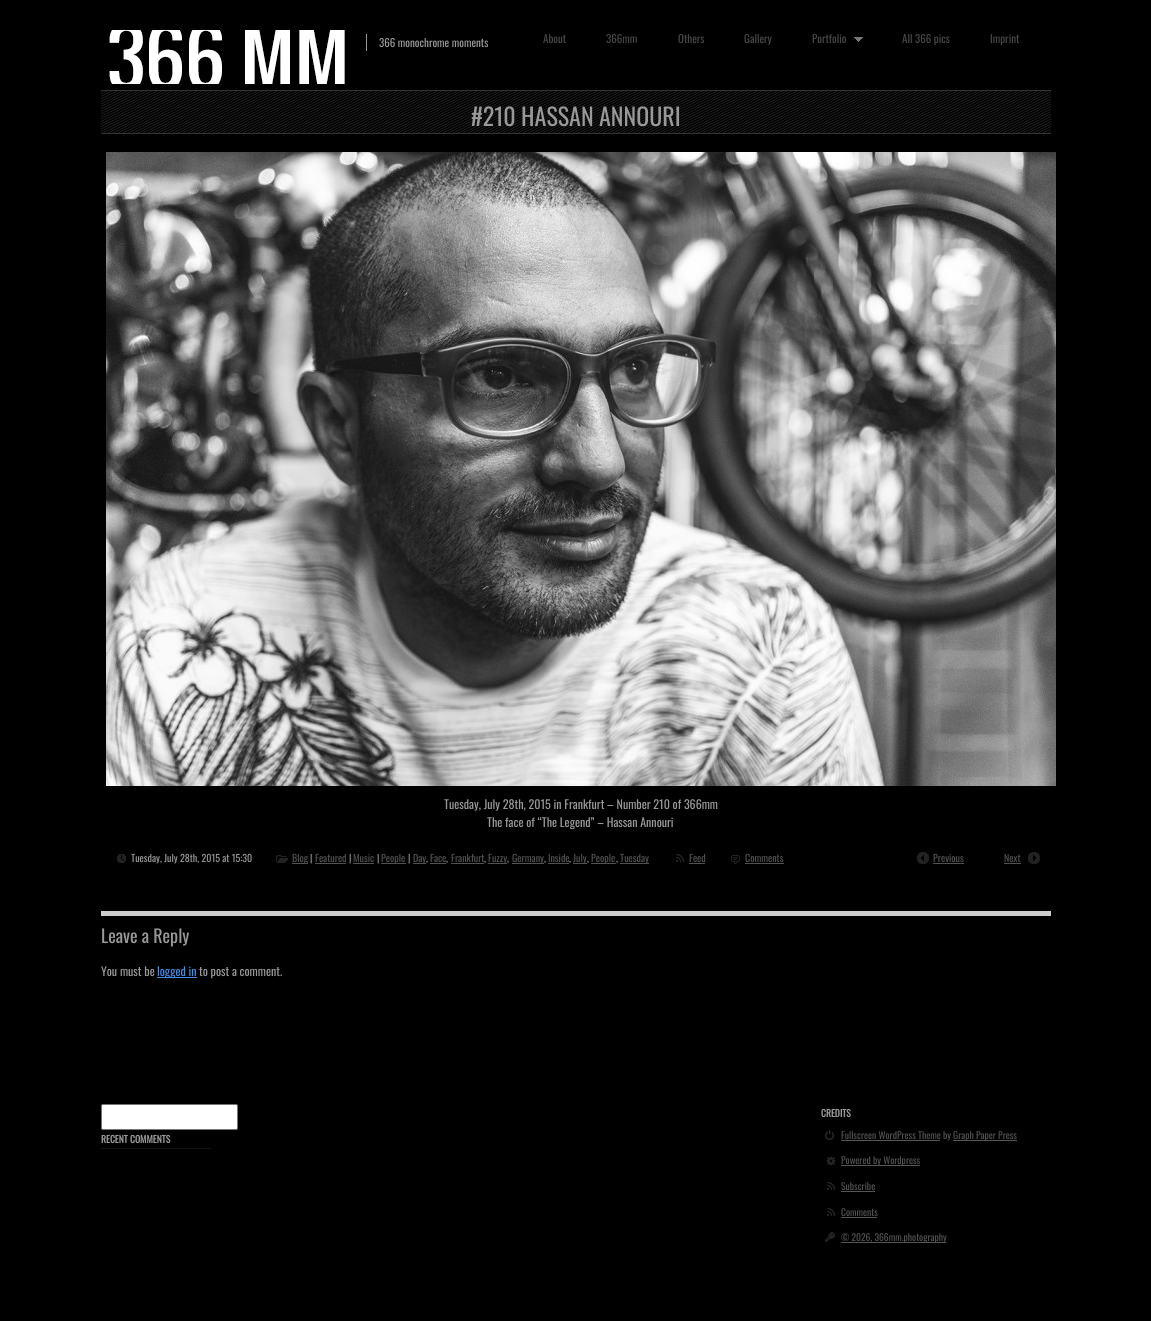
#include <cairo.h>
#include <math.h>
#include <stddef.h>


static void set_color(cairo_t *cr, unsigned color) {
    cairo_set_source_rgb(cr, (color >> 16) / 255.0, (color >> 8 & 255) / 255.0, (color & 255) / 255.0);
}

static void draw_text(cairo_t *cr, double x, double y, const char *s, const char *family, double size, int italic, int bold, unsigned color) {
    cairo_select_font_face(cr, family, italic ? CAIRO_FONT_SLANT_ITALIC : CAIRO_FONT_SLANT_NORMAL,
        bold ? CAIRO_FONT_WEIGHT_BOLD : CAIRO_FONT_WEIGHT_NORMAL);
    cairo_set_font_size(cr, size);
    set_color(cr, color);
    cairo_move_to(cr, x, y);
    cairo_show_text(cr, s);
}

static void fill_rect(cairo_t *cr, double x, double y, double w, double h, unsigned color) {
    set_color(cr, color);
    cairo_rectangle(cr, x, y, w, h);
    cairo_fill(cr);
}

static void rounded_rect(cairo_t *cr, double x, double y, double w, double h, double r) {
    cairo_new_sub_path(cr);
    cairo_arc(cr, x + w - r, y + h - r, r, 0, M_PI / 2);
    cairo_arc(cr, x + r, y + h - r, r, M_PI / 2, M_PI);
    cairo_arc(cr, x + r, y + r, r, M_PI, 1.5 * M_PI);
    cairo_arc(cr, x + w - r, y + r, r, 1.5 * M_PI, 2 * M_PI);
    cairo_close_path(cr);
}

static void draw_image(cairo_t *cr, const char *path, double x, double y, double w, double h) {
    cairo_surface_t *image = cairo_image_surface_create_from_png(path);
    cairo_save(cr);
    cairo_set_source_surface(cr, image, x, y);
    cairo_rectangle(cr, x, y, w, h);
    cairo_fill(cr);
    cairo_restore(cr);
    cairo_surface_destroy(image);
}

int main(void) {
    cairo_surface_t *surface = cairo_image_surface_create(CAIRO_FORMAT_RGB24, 1151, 1321);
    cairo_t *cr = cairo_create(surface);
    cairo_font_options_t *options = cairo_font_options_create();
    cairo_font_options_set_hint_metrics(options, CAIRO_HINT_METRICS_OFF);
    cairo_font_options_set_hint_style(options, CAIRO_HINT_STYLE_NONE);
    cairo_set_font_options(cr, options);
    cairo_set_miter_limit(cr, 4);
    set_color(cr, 0x000000);
    cairo_paint(cr);
    draw_image(cr, "assets/img1.png", 109, 30, 236, 54);
    fill_rect(cr, 366, 34, 1, 17, 0x999999);
    draw_text(cr, 379, 47, "366 monochrome moments", "Oswald", 11, 0, 0, 0x999999);
    draw_text(cr, 543, 43, "About", "Oswald", 11, 0, 0, 0x474747);
    draw_text(cr, 606, 43, "366mm", "Oswald", 11, 0, 0, 0x474747);
    draw_text(cr, 678, 43, "Others", "Oswald", 11, 0, 0, 0x474747);
    draw_text(cr, 744, 43, "Gallery", "Oswald", 11, 0, 0, 0x474747);
    draw_text(cr, 812, 43, "Portfolio", "Oswald", 11, 0, 0, 0x474747);
    draw_image(cr, "assets/img2.png", 854, 37, 9, 5);
    draw_text(cr, 902, 43, "All 366 pics", "Oswald", 11, 0, 0, 0x474747);
    draw_text(cr, 990, 43, "Imprint", "Oswald", 11, 0, 0, 0x474747);
    draw_image(cr, "assets/img3.png", 101, 91, 950, 42);
    fill_rect(cr, 101, 90, 950, 1, 0x333333);
    fill_rect(cr, 101, 133, 950, 1, 0x333333);
    draw_text(cr, 471, 126, "#210 HASSAN ANNOURI", "Oswald", 24, 0, 0, 0x999999);
    draw_image(cr, "assets/img4.png", 106, 152, 950, 634);
    draw_text(cr, 444, 809, "Tuesday, July 28th, 2015 in Frankfurt – Number 210 of 366mm", "Oswald", 12, 0, 0, 0x999999);
    draw_text(cr, 487, 827, "The face of “The Legend” – Hassan Annouri", "Oswald", 12, 0, 0, 0x999999);
    draw_image(cr, "assets/img5.png", 117, 854, 9, 9);
    draw_text(cr, 131, 862, "Tuesday, July 28th, 2015 at 15:30", "Oswald", 10, 0, 0, 0x999999);
    draw_image(cr, "assets/img6.png", 276, 855, 12, 8);
    fill_rect(cr, 292, 863, 16, 1, 0x515151);
    draw_text(cr, 292, 862, "Blog", "Oswald", 10, 0, 0, 0x515151);
    draw_text(cr, 310, 862, "|", "Oswald", 10, 0, 0, 0x999999);
    draw_text(cr, 315, 862, "Featured", "Oswald", 10, 0, 0, 0x515151);
    fill_rect(cr, 315, 863, 31, 1, 0x515151);
    draw_text(cr, 349, 862, "|", "Oswald", 10, 0, 0, 0x999999);
    draw_text(cr, 353, 862, "Music", "Oswald", 10, 0, 0, 0x515151);
    fill_rect(cr, 353, 863, 21, 1, 0x515151);
    draw_text(cr, 377, 862, "|", "Oswald", 10, 0, 0, 0x999999);
    fill_rect(cr, 381, 863, 25, 1, 0x515151);
    draw_text(cr, 381, 862, "People", "Oswald", 10, 0, 0, 0x515151);
    draw_text(cr, 408, 862, "|", "Oswald", 10, 0, 0, 0x999999);
    fill_rect(cr, 413, 863, 13, 1, 0x515151);
    draw_text(cr, 413, 862, "Day", "Oswald", 10, 0, 0, 0x515151);
    draw_text(cr, 426, 862, ",", "Oswald", 10, 0, 0, 0x999999);
    draw_text(cr, 430, 862, "Face", "Oswald", 10, 0, 0, 0x515151);
    fill_rect(cr, 430, 863, 16, 1, 0x515151);
    draw_text(cr, 451, 862, "Frankfurt", "Oswald", 10, 0, 0, 0x515151);
    fill_rect(cr, 451, 863, 33, 1, 0x515151);
    fill_rect(cr, 488, 863, 19, 1, 0x515151);
    draw_text(cr, 488, 862, "Fuzzy", "Oswald", 10, 0, 0, 0x515151);
    fill_rect(cr, 512, 863, 32, 1, 0x515151);
    draw_text(cr, 512, 862, "Germany", "Oswald", 10, 0, 0, 0x515151);
    draw_text(cr, 548, 862, "Inside", "Oswald", 10, 0, 0, 0x515151);
    fill_rect(cr, 548, 863, 21, 1, 0x515151);
    fill_rect(cr, 573, 863, 14, 1, 0x515151);
    draw_text(cr, 573, 862, "July", "Oswald", 10, 0, 0, 0x515151);
    fill_rect(cr, 591, 863, 25, 1, 0x515151);
    draw_text(cr, 591, 862, "People", "Oswald", 10, 0, 0, 0x515151);
    fill_rect(cr, 620, 863, 29, 1, 0x515151);
    draw_text(cr, 620, 862, "Tuesday", "Oswald", 10, 0, 0, 0x515151);
    draw_text(cr, 446, 862, ",", "Oswald", 10, 0, 0, 0x999999);
    draw_text(cr, 484, 862, ",", "Oswald", 10, 0, 0, 0x999999);
    draw_text(cr, 507, 862, ",", "Oswald", 10, 0, 0, 0x999999);
    draw_text(cr, 544, 862, ",", "Oswald", 10, 0, 0, 0x999999);
    draw_text(cr, 569, 862, ",", "Oswald", 10, 0, 0, 0x999999);
    draw_text(cr, 587, 862, ",", "Oswald", 10, 0, 0, 0x999999);
    draw_text(cr, 616, 862, ",", "Oswald", 10, 0, 0, 0x999999);
    draw_image(cr, "assets/img7.png", 676, 854, 8, 8);
    draw_text(cr, 689, 862, "Feed", "Oswald", 10, 0, 0, 0x515151);
    fill_rect(cr, 689, 863, 16, 1, 0x515151);
    draw_image(cr, "assets/img8.png", 731, 855, 9, 9);
    draw_text(cr, 745, 862, "Comments", "Oswald", 10, 0, 0, 0x515151);
    fill_rect(cr, 745, 863, 39, 1, 0x515151);
    draw_image(cr, "assets/img9.png", 917, 852, 12, 12);
    draw_text(cr, 933, 862, "Previous", "Oswald", 10, 0, 0, 0x515151);
    fill_rect(cr, 933, 863, 31, 1, 0x515151);
    draw_text(cr, 1004, 862, "Next", "Oswald", 10, 0, 0, 0x515151);
    fill_rect(cr, 1004, 863, 17, 1, 0x515151);
    draw_image(cr, "assets/img10.png", 1028, 852, 12, 12);
    fill_rect(cr, 101, 911, 950, 5, 0xCCCCCC);
    draw_text(cr, 101, 943, "Leave a Reply", "Oswald", 18, 0, 0, 0x999999);
    draw_text(cr, 101, 976, "You must be", "Oswald", 12, 0, 0, 0x999999);
    fill_rect(cr, 157, 977, 40, 1, 0x428CE7);
    draw_text(cr, 157, 976, "logged in", "Oswald", 12, 0, 0, 0x428CE7);
    draw_text(cr, 199, 976, "to post a comment.", "Oswald", 12, 0, 0, 0x999999);
    set_color(cr, 0xFFFFFF);
    rounded_rect(cr, 101.5, 1104.5, 136, 25, 1.5);
    cairo_fill_preserve(cr);
    set_color(cr, 0x767676);
    cairo_set_line_width(cr, 1);
    cairo_stroke(cr);
    draw_text(cr, 101, 1143, "RECENT COMMENTS", "Oswald", 9.6, 0, 1, 0x999999);
    fill_rect(cr, 101, 1148, 110, 1, 0x111111);
    draw_text(cr, 821, 1117, "CREDITS", "Oswald", 9.6, 0, 1, 0x999999);
    draw_image(cr, "assets/img11.png", 824, 1130, 11, 10);
    fill_rect(cr, 841, 1140, 99, 1, 0x555555);
    draw_text(cr, 841, 1139, "Fullscreen WordPress Theme by", "Oswald", 9.6, 0, 0, 0x515151);
    fill_rect(cr, 953, 1140, 64, 1, 0x555555);
    draw_text(cr, 953, 1139, "Graph Paper Press", "Oswald", 9.6, 0, 0, 0x515151);
    draw_image(cr, "assets/img12.png", 826, 1156, 10, 10);
    fill_rect(cr, 841, 1165, 79, 1, 0x555555);
    draw_text(cr, 841, 1164, "Powered by Wordpress", "Oswald", 9.6, 0, 0, 0x515151);
    draw_image(cr, "assets/img7.png", 827, 1182, 8, 8);
    draw_text(cr, 841, 1190, "Subscribe", "Oswald", 9.6, 0, 0, 0x515151);
    fill_rect(cr, 841, 1191, 34, 1, 0x555555);
    draw_image(cr, "assets/img7.png", 827, 1208, 8, 8);
    draw_text(cr, 841, 1216, "Comments", "Oswald", 9.6, 0, 0, 0x515151);
    fill_rect(cr, 841, 1217, 36, 1, 0x555555);
    draw_image(cr, "assets/img13.png", 825, 1232, 10, 10);
    fill_rect(cr, 841, 1242, 105, 1, 0x555555);
    draw_text(cr, 841, 1241, "© 2026, 366mm.photography", "Oswald", 9.6, 0, 0, 0x515151);
    cairo_surface_write_to_png(surface, "output.png");
    cairo_font_options_destroy(options);
    cairo_destroy(cr);
    cairo_surface_destroy(surface);
    return 0;
}
